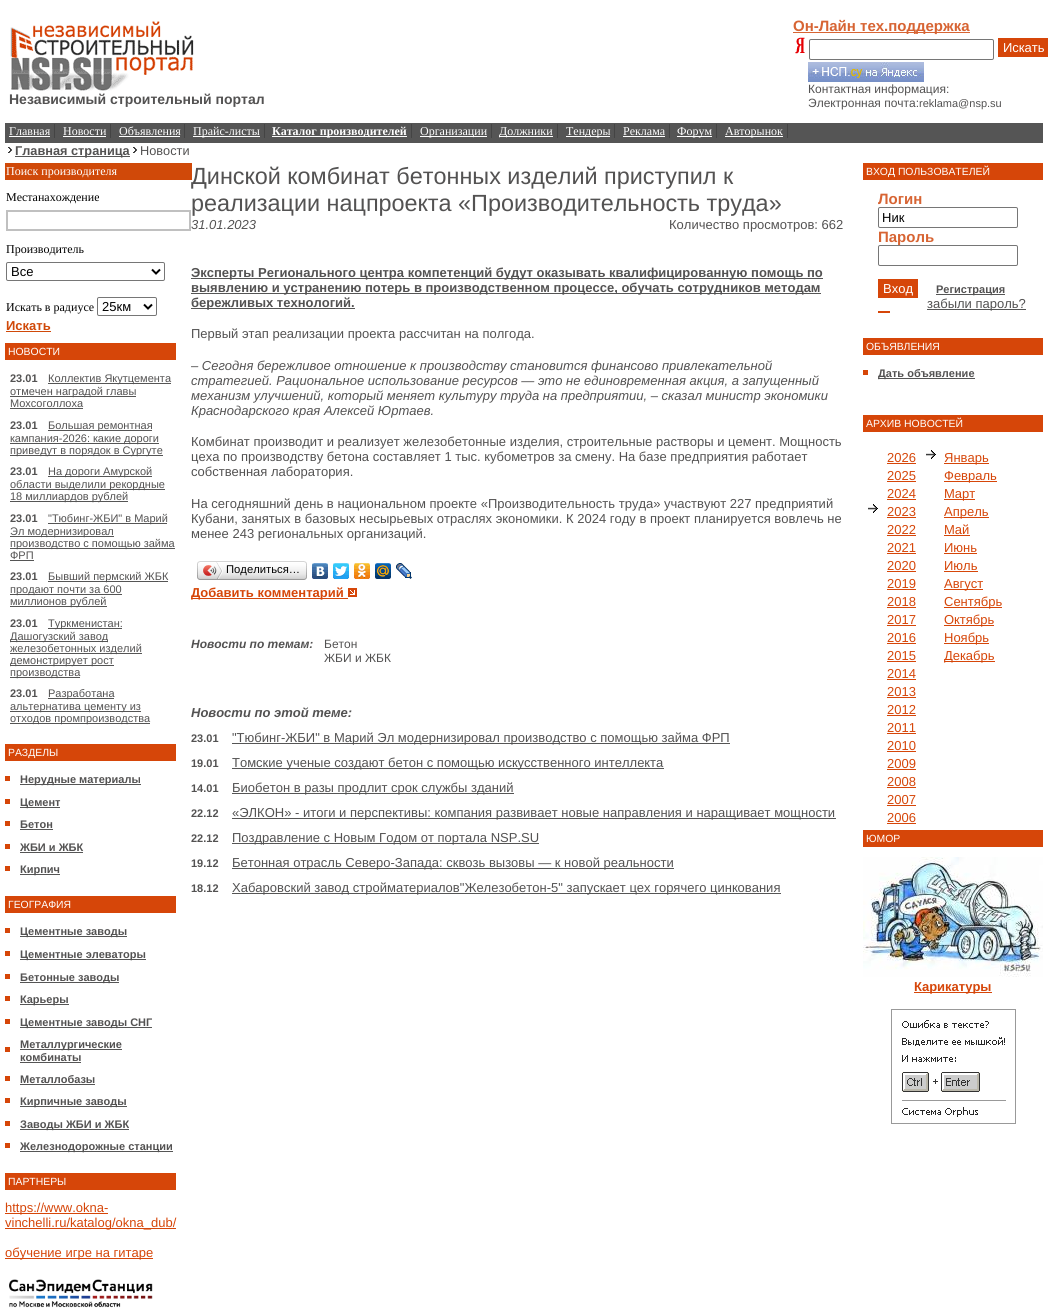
#include <cairo.h>
#include <math.h>
#include <stddef.h>


static void set_color(cairo_t *cr, unsigned color) {
    cairo_set_source_rgb(cr, (color >> 16) / 255.0, (color >> 8 & 255) / 255.0, (color & 255) / 255.0);
}

static void draw_text(cairo_t *cr, double x, double y, const char *s, const char *family, double size, int italic, int bold, unsigned color) {
    cairo_select_font_face(cr, family, italic ? CAIRO_FONT_SLANT_ITALIC : CAIRO_FONT_SLANT_NORMAL,
        bold ? CAIRO_FONT_WEIGHT_BOLD : CAIRO_FONT_WEIGHT_NORMAL);
    cairo_set_font_size(cr, size);
    set_color(cr, color);
    cairo_move_to(cr, x, y);
    cairo_show_text(cr, s);
}

static void fill_rect(cairo_t *cr, double x, double y, double w, double h, unsigned color) {
    set_color(cr, color);
    cairo_rectangle(cr, x, y, w, h);
    cairo_fill(cr);
}

static void rounded_rect(cairo_t *cr, double x, double y, double w, double h, double r) {
    cairo_new_sub_path(cr);
    cairo_arc(cr, x + w - r, y + h - r, r, 0, M_PI / 2);
    cairo_arc(cr, x + r, y + h - r, r, M_PI / 2, M_PI);
    cairo_arc(cr, x + r, y + r, r, M_PI, 1.5 * M_PI);
    cairo_arc(cr, x + w - r, y + r, r, 1.5 * M_PI, 2 * M_PI);
    cairo_close_path(cr);
}

static void draw_image(cairo_t *cr, const char *path, double x, double y, double w, double h) {
    cairo_surface_t *image = cairo_image_surface_create_from_png(path);
    cairo_save(cr);
    cairo_set_source_surface(cr, image, x, y);
    cairo_rectangle(cr, x, y, w, h);
    cairo_fill(cr);
    cairo_restore(cr);
    cairo_surface_destroy(image);
}

int main(void) {
    cairo_surface_t *surface = cairo_image_surface_create(CAIRO_FORMAT_RGB24, 1048, 1310);
    cairo_t *cr = cairo_create(surface);
    cairo_font_options_t *options = cairo_font_options_create();
    cairo_font_options_set_hint_metrics(options, CAIRO_HINT_METRICS_OFF);
    cairo_font_options_set_hint_style(options, CAIRO_HINT_STYLE_NONE);
    cairo_set_font_options(cr, options);
    cairo_set_miter_limit(cr, 4);
    set_color(cr, 0xFFFFFF);
    cairo_paint(cr);
    draw_image(cr, "assets/img1.png", 10, 21, 184, 70);
    draw_text(cr, 9, 104, "Независимый строительный портал", "Liberation Sans", 14, 0, 1, 0x535252);
    fill_rect(cr, 793, 32, 177, 1, 0xD76433);
    draw_text(cr, 793, 31, "Он-Лайн тех.поддержка", "Liberation Sans", 15, 0, 1, 0xD76433);
    draw_image(cr, "assets/img2.png", 795, 37, 10, 17);
    rounded_rect(cr, 809.5, 39.5, 184, 20, 1.5);
    set_color(cr, 0x767676);
    cairo_set_line_width(cr, 1);
    cairo_stroke(cr);
    fill_rect(cr, 998, 38, 50, 19, 0xD64609);
    draw_text(cr, 1003, 52, "Искать", "Liberation Sans", 13, 0, 0, 0xFFFFFF);
    draw_image(cr, "assets/img3.png", 808, 62, 116, 20);
    draw_text(cr, 808, 93, "Контактная информация:", "Liberation Sans", 12, 0, 0, 0x535252);
    draw_text(cr, 808, 107, "Электронная почта:", "Liberation Sans", 12, 0, 0, 0x535252);
    draw_text(cr, 919, 107, "reklama@nsp.su", "Liberation Sans", 11, 0, 0, 0x535252);
    fill_rect(cr, 5, 123, 1038, 20, 0x555555);
    draw_text(cr, 9, 135, "Главная", "Liberation Serif", 12, 0, 0, 0xFFFFFF);
    fill_rect(cr, 54, 124, 1, 14, 0x444444);
    fill_rect(cr, 9, 136, 41, 1, 0xFFFFFF);
    draw_text(cr, 63, 135, "Новости", "Liberation Serif", 12, 0, 0, 0xFFFFFF);
    fill_rect(cr, 110, 124, 1, 14, 0x444444);
    fill_rect(cr, 63, 136, 43, 1, 0xFFFFFF);
    draw_text(cr, 119, 135, "Объявления", "Liberation Serif", 12, 0, 0, 0xFFFFFF);
    fill_rect(cr, 184, 124, 1, 14, 0x444444);
    fill_rect(cr, 119, 136, 61, 1, 0xFFFFFF);
    fill_rect(cr, 193, 136, 67, 1, 0xFFFFFF);
    draw_text(cr, 193, 135, "Прайс-листы", "Liberation Serif", 12, 0, 0, 0xFFFFFF);
    fill_rect(cr, 264, 124, 1, 14, 0x444444);
    fill_rect(cr, 272, 136, 135, 1, 0xFFFFFF);
    draw_text(cr, 272, 135, "Каталог производителей", "Liberation Serif", 12, 0, 1, 0xFFFFFF);
    fill_rect(cr, 411, 124, 1, 14, 0x444444);
    fill_rect(cr, 420, 136, 67, 1, 0xFFFFFF);
    draw_text(cr, 420, 135, "Организации", "Liberation Serif", 12, 0, 0, 0xFFFFFF);
    fill_rect(cr, 491, 124, 1, 14, 0x444444);
    fill_rect(cr, 499, 136, 54, 1, 0xFFFFFF);
    draw_text(cr, 499, 135, "Должники", "Liberation Serif", 12, 0, 0, 0xFFFFFF);
    fill_rect(cr, 557, 124, 1, 14, 0x444444);
    fill_rect(cr, 566, 136, 44, 1, 0xFFFFFF);
    draw_text(cr, 566, 135, "Тендеры", "Liberation Serif", 12, 0, 0, 0xFFFFFF);
    fill_rect(cr, 614, 124, 1, 14, 0x444444);
    draw_text(cr, 623, 135, "Реклама", "Liberation Serif", 12, 0, 0, 0xFFFFFF);
    fill_rect(cr, 669, 124, 1, 14, 0x444444);
    fill_rect(cr, 623, 136, 42, 1, 0xFFFFFF);
    fill_rect(cr, 677, 136, 35, 1, 0xFFFFFF);
    draw_text(cr, 677, 135, "Форум", "Liberation Serif", 12, 0, 0, 0xFFFFFF);
    fill_rect(cr, 716, 124, 1, 14, 0x444444);
    fill_rect(cr, 725, 136, 58, 1, 0xFFFFFF);
    draw_text(cr, 725, 135, "Авторынок", "Liberation Serif", 12, 0, 0, 0xFFFFFF);
    fill_rect(cr, 787, 124, 1, 14, 0x444444);
    draw_image(cr, "assets/img4.png", 8, 147, 4, 6);
    fill_rect(cr, 15, 156, 115, 1, 0x555555);
    draw_text(cr, 15, 155, "Главная страница", "Liberation Sans", 12.75, 0, 1, 0x535252);
    draw_image(cr, "assets/img4.png", 133, 147, 4, 6);
    draw_text(cr, 140, 155, "Новости", "Liberation Sans", 12.75, 0, 0, 0x535252);
    fill_rect(cr, 5, 163, 187, 17, 0xD04909);
    draw_text(cr, 6, 175, "Поиск производителя", "Liberation Serif", 12, 0, 0, 0xFFFFFF);
    draw_text(cr, 6, 201, "Местанахождение", "Liberation Serif", 12, 0, 0, 0x000000);
    cairo_rectangle(cr, 7, 211, 183, 19);
    set_color(cr, 0xC0C0C0);
    cairo_set_line_width(cr, 2);
    cairo_stroke(cr);
    draw_text(cr, 6, 253, "Производитель", "Liberation Serif", 12, 0, 0, 0x000000);
    rounded_rect(cr, 6.5, 262.5, 158, 18, 1.5);
    set_color(cr, 0x767676);
    cairo_set_line_width(cr, 1);
    cairo_stroke(cr);
    cairo_new_path(cr);
    cairo_move_to(cr, 152, 269.5);
    cairo_line_to(cr, 156, 273.5);
    cairo_line_to(cr, 160, 269.5);
    set_color(cr, 0x000000);
    cairo_set_line_width(cr, 2);
    cairo_stroke(cr);
    draw_text(cr, 11, 276, "Все", "Liberation Sans", 13, 0, 0, 0x000000);
    draw_text(cr, 6, 311, "Искать в радиусе", "Liberation Serif", 12, 0, 0, 0x000000);
    rounded_rect(cr, 97.5, 297.5, 59, 18, 1.5);
    set_color(cr, 0x767676);
    cairo_set_line_width(cr, 1);
    cairo_stroke(cr);
    cairo_new_path(cr);
    cairo_move_to(cr, 144, 304.5);
    cairo_line_to(cr, 148, 308.5);
    cairo_line_to(cr, 152, 304.5);
    set_color(cr, 0x000000);
    cairo_set_line_width(cr, 2);
    cairo_stroke(cr);
    draw_text(cr, 102, 311, "25км", "Liberation Sans", 13, 0, 0, 0x000000);
    draw_text(cr, 6, 330, "Искать", "Liberation Sans", 13, 0, 1, 0xD04909);
    fill_rect(cr, 6, 331, 45, 1, 0xD04909);
    fill_rect(cr, 5, 343, 171, 17, 0xD64609);
    draw_text(cr, 8, 355, "НОВОСТИ", "Liberation Sans", 10.4, 0, 0, 0xFFFFFF);
    draw_text(cr, 10, 382, "23.01", "Liberation Sans", 11, 0, 1, 0x535252);
    fill_rect(cr, 48, 383, 123, 1, 0x555555);
    draw_text(cr, 48, 382, "Коллектив Якутцемента", "Liberation Sans", 11, 0, 0, 0x535252);
    fill_rect(cr, 10, 396, 126, 1, 0x555555);
    draw_text(cr, 10, 395, "отмечен наградой главы", "Liberation Sans", 11, 0, 0, 0x535252);
    draw_text(cr, 10, 407, "Мохсоголлоха", "Liberation Sans", 11, 0, 0, 0x535252);
    fill_rect(cr, 10, 408, 73, 1, 0x555555);
    draw_text(cr, 10, 429, "23.01", "Liberation Sans", 11, 0, 1, 0x535252);
    fill_rect(cr, 48, 430, 104, 1, 0x555555);
    draw_text(cr, 48, 429, "Большая ремонтная", "Liberation Sans", 11, 0, 0, 0x535252);
    fill_rect(cr, 10, 443, 149, 1, 0x555555);
    draw_text(cr, 10, 442, "кампания-2026: какие дороги", "Liberation Sans", 11, 0, 0, 0x535252);
    fill_rect(cr, 10, 455, 153, 1, 0x555555);
    draw_text(cr, 10, 454, "приведут в порядок в Сургуте", "Liberation Sans", 11, 0, 0, 0x535252);
    draw_text(cr, 10, 475, "23.01", "Liberation Sans", 11, 0, 1, 0x535252);
    fill_rect(cr, 48, 476, 104, 1, 0x555555);
    draw_text(cr, 48, 475, "На дороги Амурской", "Liberation Sans", 11, 0, 0, 0x535252);
    fill_rect(cr, 10, 489, 155, 1, 0x555555);
    draw_text(cr, 10, 488, "области выделили рекордные", "Liberation Sans", 11, 0, 0, 0x535252);
    fill_rect(cr, 10, 501, 118, 1, 0x555555);
    draw_text(cr, 10, 500, "18 миллиардов рублей", "Liberation Sans", 11, 0, 0, 0x535252);
    draw_text(cr, 10, 522, "23.01", "Liberation Sans", 11, 0, 1, 0x535252);
    fill_rect(cr, 48, 523, 119, 1, 0x555555);
    draw_text(cr, 48, 522, "\"Тюбинг-ЖБИ\" в Марий", "Liberation Sans", 11, 0, 0, 0x535252);
    fill_rect(cr, 10, 536, 104, 1, 0x555555);
    draw_text(cr, 10, 535, "Эл модернизировал", "Liberation Sans", 11, 0, 0, 0x535252);
    fill_rect(cr, 10, 548, 165, 1, 0x555555);
    draw_text(cr, 10, 547, "производство с помощью займа", "Liberation Sans", 11, 0, 0, 0x535252);
    draw_text(cr, 10, 559, "ФРП", "Liberation Sans", 11, 0, 0, 0x535252);
    fill_rect(cr, 10, 560, 24, 1, 0x555555);
    draw_text(cr, 10, 580, "23.01", "Liberation Sans", 11, 0, 1, 0x535252);
    fill_rect(cr, 48, 581, 120, 1, 0x555555);
    draw_text(cr, 48, 580, "Бывший пермский ЖБК", "Liberation Sans", 11, 0, 0, 0x535252);
    fill_rect(cr, 10, 594, 112, 1, 0x555555);
    draw_text(cr, 10, 593, "продают почти за 600", "Liberation Sans", 11, 0, 0, 0x535252);
    fill_rect(cr, 10, 606, 97, 1, 0x555555);
    draw_text(cr, 10, 605, "миллионов рублей", "Liberation Sans", 11, 0, 0, 0x535252);
    draw_text(cr, 10, 627, "23.01", "Liberation Sans", 11, 0, 1, 0x535252);
    fill_rect(cr, 48, 628, 74, 1, 0x555555);
    draw_text(cr, 48, 627, "Туркменистан:", "Liberation Sans", 11, 0, 0, 0x535252);
    fill_rect(cr, 10, 641, 98, 1, 0x555555);
    draw_text(cr, 10, 640, "Дашогузский завод", "Liberation Sans", 11, 0, 0, 0x535252);
    fill_rect(cr, 10, 653, 132, 1, 0x555555);
    draw_text(cr, 10, 652, "железобетонных изделий", "Liberation Sans", 11, 0, 0, 0x535252);
    fill_rect(cr, 10, 665, 104, 1, 0x555555);
    draw_text(cr, 10, 664, "демонстрирует рост", "Liberation Sans", 11, 0, 0, 0x535252);
    fill_rect(cr, 10, 677, 70, 1, 0x555555);
    draw_text(cr, 10, 676, "производства", "Liberation Sans", 11, 0, 0, 0x535252);
    draw_text(cr, 10, 697, "23.01", "Liberation Sans", 11, 0, 1, 0x535252);
    fill_rect(cr, 48, 698, 66, 1, 0x555555);
    draw_text(cr, 48, 697, "Разработана", "Liberation Sans", 11, 0, 0, 0x535252);
    fill_rect(cr, 10, 711, 131, 1, 0x555555);
    draw_text(cr, 10, 710, "альтернатива цементу из", "Liberation Sans", 11, 0, 0, 0x535252);
    fill_rect(cr, 10, 723, 140, 1, 0x555555);
    draw_text(cr, 10, 722, "отходов промпроизводства", "Liberation Sans", 11, 0, 0, 0x535252);
    fill_rect(cr, 5, 744, 171, 17, 0xD64609);
    draw_text(cr, 8, 756, "РАЗДЕЛЫ", "Liberation Sans", 10.4, 0, 0, 0xFFFFFF);
    draw_image(cr, "assets/img5.png", 5, 776, 5, 5);
    fill_rect(cr, 20, 784, 121, 1, 0x555555);
    draw_text(cr, 20, 783, "Нерудные материалы", "Liberation Sans", 11, 0, 1, 0x535252);
    draw_image(cr, "assets/img5.png", 5, 799, 5, 5);
    fill_rect(cr, 20, 807, 40, 1, 0x555555);
    draw_text(cr, 20, 806, "Цемент", "Liberation Sans", 11, 0, 1, 0x535252);
    draw_image(cr, "assets/img5.png", 5, 821, 5, 5);
    draw_text(cr, 20, 828, "Бетон", "Liberation Sans", 11, 0, 1, 0x535252);
    fill_rect(cr, 20, 829, 33, 1, 0x555555);
    draw_image(cr, "assets/img5.png", 5, 844, 5, 5);
    draw_text(cr, 20, 851, "ЖБИ и ЖБК", "Liberation Sans", 11, 0, 1, 0x535252);
    fill_rect(cr, 20, 852, 63, 1, 0x555555);
    draw_image(cr, "assets/img5.png", 5, 866, 5, 5);
    fill_rect(cr, 20, 874, 40, 1, 0x555555);
    draw_text(cr, 20, 873, "Кирпич", "Liberation Sans", 11, 0, 1, 0x535252);
    fill_rect(cr, 5, 896, 171, 17, 0xD64609);
    draw_text(cr, 8, 908, "ГЕОГРАФИЯ", "Liberation Sans", 10.4, 0, 0, 0xFFFFFF);
    draw_image(cr, "assets/img5.png", 5, 928, 5, 5);
    fill_rect(cr, 20, 936, 107, 1, 0x555555);
    draw_text(cr, 20, 935, "Цементные заводы", "Liberation Sans", 11, 0, 1, 0x535252);
    draw_image(cr, "assets/img5.png", 5, 951, 5, 5);
    fill_rect(cr, 20, 959, 126, 1, 0x555555);
    draw_text(cr, 20, 958, "Цементные элеваторы", "Liberation Sans", 11, 0, 1, 0x535252);
    draw_image(cr, "assets/img5.png", 5, 974, 5, 5);
    fill_rect(cr, 20, 982, 99, 1, 0x555555);
    draw_text(cr, 20, 981, "Бетонные заводы", "Liberation Sans", 11, 0, 1, 0x535252);
    draw_image(cr, "assets/img5.png", 5, 996, 5, 5);
    fill_rect(cr, 20, 1004, 49, 1, 0x555555);
    draw_text(cr, 20, 1003, "Карьеры", "Liberation Sans", 11, 0, 1, 0x535252);
    draw_image(cr, "assets/img5.png", 5, 1019, 5, 5);
    fill_rect(cr, 20, 1027, 132, 1, 0x555555);
    draw_text(cr, 20, 1026, "Цементные заводы СНГ", "Liberation Sans", 11, 0, 1, 0x535252);
    draw_image(cr, "assets/img5.png", 5, 1047, 5, 5);
    fill_rect(cr, 20, 1049, 102, 1, 0x555555);
    draw_text(cr, 20, 1048, "Металлургические", "Liberation Sans", 11, 0, 1, 0x535252);
    draw_text(cr, 20, 1061, "комбинаты", "Liberation Sans", 11, 0, 1, 0x535252);
    fill_rect(cr, 20, 1062, 61, 1, 0x555555);
    draw_image(cr, "assets/img5.png", 5, 1076, 5, 5);
    draw_text(cr, 20, 1083, "Металлобазы", "Liberation Sans", 11, 0, 1, 0x535252);
    fill_rect(cr, 20, 1084, 75, 1, 0x555555);
    draw_image(cr, "assets/img5.png", 5, 1098, 5, 5);
    fill_rect(cr, 20, 1106, 107, 1, 0x555555);
    draw_text(cr, 20, 1105, "Кирпичные заводы", "Liberation Sans", 11, 0, 1, 0x535252);
    draw_image(cr, "assets/img5.png", 5, 1121, 5, 5);
    fill_rect(cr, 20, 1129, 109, 1, 0x555555);
    draw_text(cr, 20, 1128, "Заводы ЖБИ и ЖБК", "Liberation Sans", 11, 0, 1, 0x535252);
    draw_image(cr, "assets/img5.png", 5, 1143, 5, 5);
    fill_rect(cr, 20, 1151, 153, 1, 0x555555);
    draw_text(cr, 20, 1150, "Железнодорожные станции", "Liberation Sans", 11, 0, 1, 0x535252);
    fill_rect(cr, 5, 1173, 171, 17, 0xD64609);
    draw_text(cr, 8, 1185, "ПАРТНЕРЫ", "Liberation Sans", 10.4, 0, 0, 0xFFFFFF);
    fill_rect(cr, 5, 1213, 103, 1, 0xD64609);
    draw_text(cr, 5, 1212, "https://www.okna-", "Liberation Sans", 13, 0, 0, 0xD64609);
    fill_rect(cr, 5, 1228, 171, 1, 0xD64609);
    draw_text(cr, 5, 1227, "vinchelli.ru/katalog/okna_dub/", "Liberation Sans", 13, 0, 0, 0xD64609);
    fill_rect(cr, 5, 1258, 148, 1, 0xD64609);
    draw_text(cr, 5, 1257, "обучение игре на гитаре", "Liberation Sans", 13, 0, 0, 0xD64609);
    draw_image(cr, "assets/img6.png", 9, 1279, 144, 29);
    draw_text(cr, 191, 184, "Динской комбинат бетонных изделий приступил к", "Liberation Sans", 23.4, 0, 0, 0x535252);
    draw_text(cr, 191, 211, "реализации нацпроекта «Производительность труда»", "Liberation Sans", 23.4, 0, 0, 0x535252);
    draw_text(cr, 191, 229, "31.01.2023", "Liberation Sans", 13, 1, 0, 0x535252);
    draw_text(cr, 669, 229, "Количество просмотров: 662", "Liberation Sans", 13, 0, 0, 0x535252);
    fill_rect(cr, 191, 278, 632, 1, 0x555555);
    draw_text(cr, 191, 277, "Эксперты Регионального центра компетенций будут оказывать квалифицированную помощь по", "Liberation Sans", 13, 0, 1, 0x535252);
    fill_rect(cr, 191, 293, 630, 1, 0x555555);
    draw_text(cr, 191, 292, "выявлению и устранению потерь в производственном процессе, обучать сотрудников методам", "Liberation Sans", 13, 0, 1, 0x535252);
    fill_rect(cr, 191, 308, 164, 1, 0x555555);
    draw_text(cr, 191, 307, "бережливых технологий.", "Liberation Sans", 13, 0, 1, 0x535252);
    draw_text(cr, 191, 338, "Первый этап реализации проекта рассчитан на полгода.", "Liberation Sans", 13, 0, 0, 0x535252);
    draw_text(cr, 191, 370, "– Сегодня бережливое отношение к производству становится финансово привлекательной", "Liberation Sans", 13, 1, 0, 0x535252);
    draw_text(cr, 191, 385, "стратегией. Рациональное использование ресурсов — это не единовременная акция, а запущенный", "Liberation Sans", 13, 1, 0, 0x535252);
    draw_text(cr, 191, 400, "механизм улучшений, который меняет культуру труда на предприятии, – сказал министр экономики", "Liberation Sans", 13, 1, 0, 0x535252);
    draw_text(cr, 191, 415, "Краснодарского края Алексей Юртаев.", "Liberation Sans", 13, 1, 0, 0x535252);
    draw_text(cr, 191, 446, "Комбинат производит и реализует железобетонные изделия, строительные растворы и цемент. Мощность", "Liberation Sans", 13, 0, 0, 0x535252);
    draw_text(cr, 191, 461, "цеха по производству бетона составляет 1 тыс. кубометров за смену. На базе предприятия работает", "Liberation Sans", 13, 0, 0, 0x535252);
    draw_text(cr, 191, 476, "собственная лаборатория.", "Liberation Sans", 13, 0, 0, 0x535252);
    draw_text(cr, 191, 508, "На сегодняшний день в национальном проекте «Производительность труда» участвуют 227 предприятий", "Liberation Sans", 13, 0, 0, 0x535252);
    draw_text(cr, 191, 523, "Кубани, занятых в базовых несырьевых отраслях экономики. К 2024 году в проект планируется вовлечь не", "Liberation Sans", 13, 0, 0, 0x535252);
    draw_text(cr, 191, 538, "менее 243 региональных организаций.", "Liberation Sans", 13, 0, 0, 0x535252);
    draw_image(cr, "assets/img7.png", 200, 561, 104, 19);
    draw_image(cr, "assets/img8.png", 197, 561, 3, 19);
    draw_image(cr, "assets/img9.png", 203, 562, 20, 17);
    draw_text(cr, 226, 573, "Поделиться…", "Liberation Sans", 11.25, 0, 0, 0x000000);
    draw_image(cr, "assets/img10.png", 304, 561, 3, 19);
    draw_image(cr, "assets/img11.png", 312, 563, 16, 16);
    draw_image(cr, "assets/img12.png", 333, 563, 16, 16);
    draw_image(cr, "assets/img13.png", 354, 563, 16, 16);
    draw_image(cr, "assets/img14.png", 375, 563, 16, 16);
    draw_image(cr, "assets/img15.png", 396, 563, 16, 16);
    fill_rect(cr, 191, 598, 157, 1, 0xD64609);
    draw_text(cr, 191, 597, "Добавить комментарий", "Liberation Sans", 13, 0, 1, 0xD64609);
    draw_image(cr, "assets/img16.png", 348, 588, 9, 9);
    draw_text(cr, 191, 648, "Новости по темам:", "Liberation Sans", 12, 1, 1, 0x535252);
    draw_text(cr, 324, 648, "Бетон", "Liberation Sans", 12, 0, 0, 0x535252);
    draw_text(cr, 324, 662, "ЖБИ и ЖБК", "Liberation Sans", 12, 0, 0, 0x535252);
    draw_text(cr, 191, 717, "Новости по этой теме:", "Liberation Sans", 13, 1, 1, 0x535252);
    draw_text(cr, 191, 742, "23.01", "Liberation Sans", 11, 0, 1, 0x535252);
    fill_rect(cr, 232, 743, 498, 1, 0x555555);
    draw_text(cr, 232, 742, "\"Тюбинг-ЖБИ\" в Марий Эл модернизировал производство с помощью займа ФРП", "Liberation Sans", 13, 0, 0, 0x535252);
    draw_text(cr, 191, 767, "19.01", "Liberation Sans", 11, 0, 1, 0x535252);
    fill_rect(cr, 232, 768, 432, 1, 0x555555);
    draw_text(cr, 232, 767, "Томские ученые создают бетон с помощью искусственного интеллекта", "Liberation Sans", 13, 0, 0, 0x535252);
    draw_text(cr, 191, 792, "14.01", "Liberation Sans", 11, 0, 1, 0x535252);
    fill_rect(cr, 232, 793, 282, 1, 0x555555);
    draw_text(cr, 232, 792, "Биобетон в разы продлит срок службы зданий", "Liberation Sans", 13, 0, 0, 0x535252);
    draw_text(cr, 191, 817, "22.12", "Liberation Sans", 11, 0, 1, 0x535252);
    fill_rect(cr, 232, 818, 604, 1, 0x555555);
    draw_text(cr, 232, 817, "«ЭЛКОН» - итоги и перспективы: компания развивает новые направления и наращивает мощности", "Liberation Sans", 13, 0, 0, 0x535252);
    draw_text(cr, 191, 842, "22.12", "Liberation Sans", 11, 0, 1, 0x535252);
    fill_rect(cr, 232, 843, 307, 1, 0x555555);
    draw_text(cr, 232, 842, "Поздравление с Новым Годом от портала NSP.SU", "Liberation Sans", 13, 0, 0, 0x535252);
    draw_text(cr, 191, 867, "19.12", "Liberation Sans", 11, 0, 1, 0x535252);
    fill_rect(cr, 232, 868, 442, 1, 0x555555);
    draw_text(cr, 232, 867, "Бетонная отрасль Северо-Запада: сквозь вызовы — к новой реальности", "Liberation Sans", 13, 0, 0, 0x535252);
    draw_text(cr, 191, 892, "18.12", "Liberation Sans", 11, 0, 1, 0x535252);
    fill_rect(cr, 232, 893, 549, 1, 0x555555);
    draw_text(cr, 232, 892, "Хабаровский завод стройматериалов\"Железобетон-5\" запускает цех горячего цинкования", "Liberation Sans", 13, 0, 0, 0x535252);
    fill_rect(cr, 863, 163, 180, 17, 0xD64609);
    draw_text(cr, 866, 175, "ВХОД ПОЛЬЗОВАТЕЛЕЙ", "Liberation Sans", 10.4, 0, 0, 0xFFFFFF);
    draw_text(cr, 878, 204, "Логин", "Liberation Sans", 15, 0, 1, 0xD76433);
    rounded_rect(cr, 878.5, 207.5, 139, 20, 1.5);
    set_color(cr, 0x767676);
    cairo_set_line_width(cr, 1);
    cairo_stroke(cr);
    draw_text(cr, 882, 222, "Ник", "Liberation Sans", 13, 0, 0, 0x000000);
    rounded_rect(cr, 878.5, 245.5, 139, 20, 1.5);
    set_color(cr, 0x767676);
    cairo_stroke(cr);
    draw_text(cr, 878, 242, "Пароль", "Liberation Sans", 15, 0, 1, 0xD76433);
    fill_rect(cr, 878, 279, 40, 19, 0xD64609);
    draw_text(cr, 883, 293, "Вход", "Liberation Sans", 13, 0, 0, 0xFFFFFF);
    fill_rect(cr, 936, 294, 69, 1, 0x555555);
    draw_text(cr, 936, 293, "Регистрация", "Liberation Sans", 11, 0, 1, 0x535252);
    fill_rect(cr, 927, 309, 99, 1, 0x555555);
    draw_text(cr, 927, 308, "забыли пароль?", "Liberation Sans", 13, 0, 0, 0x535252);
    fill_rect(cr, 878, 311, 12, 2, 0xD64609);
    fill_rect(cr, 863, 338, 180, 17, 0xD64609);
    draw_text(cr, 866, 350, "ОБЪЯВЛЕНИЯ", "Liberation Sans", 10.4, 0, 0, 0xFFFFFF);
    draw_image(cr, "assets/img5.png", 863, 370, 5, 5);
    fill_rect(cr, 878, 378, 97, 1, 0x555555);
    draw_text(cr, 878, 377, "Дать объявление", "Liberation Sans", 11, 0, 1, 0x535252);
    fill_rect(cr, 863, 415, 180, 17, 0xD64609);
    draw_text(cr, 866, 427, "АРХИВ НОВОСТЕЙ", "Liberation Sans", 10.4, 0, 0, 0xFFFFFF);
    draw_text(cr, 887, 462, "2026", "Liberation Sans", 13, 0, 0, 0xD64609);
    fill_rect(cr, 887, 463, 29, 1, 0xD64609);
    draw_text(cr, 887, 480, "2025", "Liberation Sans", 13, 0, 0, 0xD64609);
    fill_rect(cr, 887, 481, 29, 1, 0xD64609);
    draw_text(cr, 887, 498, "2024", "Liberation Sans", 13, 0, 0, 0xD64609);
    fill_rect(cr, 887, 499, 29, 1, 0xD64609);
    draw_image(cr, "assets/img17.png", 868, 504, 10, 9);
    draw_text(cr, 887, 516, "2023", "Liberation Sans", 13, 0, 0, 0xD64609);
    fill_rect(cr, 887, 517, 29, 1, 0xD64609);
    draw_text(cr, 887, 534, "2022", "Liberation Sans", 13, 0, 0, 0xD64609);
    fill_rect(cr, 887, 535, 29, 1, 0xD64609);
    draw_text(cr, 887, 552, "2021", "Liberation Sans", 13, 0, 0, 0xD64609);
    fill_rect(cr, 887, 553, 29, 1, 0xD64609);
    draw_text(cr, 887, 570, "2020", "Liberation Sans", 13, 0, 0, 0xD64609);
    fill_rect(cr, 887, 571, 29, 1, 0xD64609);
    draw_text(cr, 887, 588, "2019", "Liberation Sans", 13, 0, 0, 0xD64609);
    fill_rect(cr, 887, 589, 29, 1, 0xD64609);
    draw_text(cr, 887, 606, "2018", "Liberation Sans", 13, 0, 0, 0xD64609);
    fill_rect(cr, 887, 607, 29, 1, 0xD64609);
    draw_text(cr, 887, 624, "2017", "Liberation Sans", 13, 0, 0, 0xD64609);
    fill_rect(cr, 887, 625, 29, 1, 0xD64609);
    draw_text(cr, 887, 642, "2016", "Liberation Sans", 13, 0, 0, 0xD64609);
    fill_rect(cr, 887, 643, 29, 1, 0xD64609);
    draw_text(cr, 887, 660, "2015", "Liberation Sans", 13, 0, 0, 0xD64609);
    fill_rect(cr, 887, 661, 29, 1, 0xD64609);
    draw_text(cr, 887, 678, "2014", "Liberation Sans", 13, 0, 0, 0xD64609);
    fill_rect(cr, 887, 679, 29, 1, 0xD64609);
    draw_text(cr, 887, 696, "2013", "Liberation Sans", 13, 0, 0, 0xD64609);
    fill_rect(cr, 887, 697, 29, 1, 0xD64609);
    draw_text(cr, 887, 714, "2012", "Liberation Sans", 13, 0, 0, 0xD64609);
    fill_rect(cr, 887, 715, 29, 1, 0xD64609);
    draw_text(cr, 887, 732, "2011", "Liberation Sans", 13, 0, 0, 0xD64609);
    fill_rect(cr, 887, 733, 29, 1, 0xD64609);
    draw_text(cr, 887, 750, "2010", "Liberation Sans", 13, 0, 0, 0xD64609);
    fill_rect(cr, 887, 751, 29, 1, 0xD64609);
    draw_text(cr, 887, 768, "2009", "Liberation Sans", 13, 0, 0, 0xD64609);
    fill_rect(cr, 887, 769, 29, 1, 0xD64609);
    draw_text(cr, 887, 786, "2008", "Liberation Sans", 13, 0, 0, 0xD64609);
    fill_rect(cr, 887, 787, 29, 1, 0xD64609);
    draw_text(cr, 887, 804, "2007", "Liberation Sans", 13, 0, 0, 0xD64609);
    fill_rect(cr, 887, 805, 29, 1, 0xD64609);
    draw_text(cr, 887, 822, "2006", "Liberation Sans", 13, 0, 0, 0xD64609);
    fill_rect(cr, 887, 823, 29, 1, 0xD64609);
    draw_image(cr, "assets/img17.png", 926, 450, 10, 9);
    fill_rect(cr, 944, 463, 45, 1, 0xD64609);
    draw_text(cr, 944, 462, "Январь", "Liberation Sans", 13, 0, 0, 0xD64609);
    fill_rect(cr, 944, 481, 53, 1, 0xD64609);
    draw_text(cr, 944, 480, "Февраль", "Liberation Sans", 13, 0, 0, 0xD64609);
    fill_rect(cr, 944, 499, 31, 1, 0xD64609);
    draw_text(cr, 944, 498, "Март", "Liberation Sans", 13, 0, 0, 0xD64609);
    fill_rect(cr, 944, 517, 45, 1, 0xD64609);
    draw_text(cr, 944, 516, "Апрель", "Liberation Sans", 13, 0, 0, 0xD64609);
    draw_text(cr, 944, 534, "Май", "Liberation Sans", 13, 0, 0, 0xD64609);
    fill_rect(cr, 944, 535, 26, 1, 0xD64609);
    draw_text(cr, 944, 552, "Июнь", "Liberation Sans", 13, 0, 0, 0xD64609);
    fill_rect(cr, 944, 553, 33, 1, 0xD64609);
    draw_text(cr, 944, 570, "Июль", "Liberation Sans", 13, 0, 0, 0xD64609);
    fill_rect(cr, 944, 571, 34, 1, 0xD64609);
    fill_rect(cr, 944, 589, 39, 1, 0xD64609);
    draw_text(cr, 944, 588, "Август", "Liberation Sans", 13, 0, 0, 0xD64609);
    fill_rect(cr, 944, 607, 58, 1, 0xD64609);
    draw_text(cr, 944, 606, "Сентябрь", "Liberation Sans", 13, 0, 0, 0xD64609);
    fill_rect(cr, 944, 625, 50, 1, 0xD64609);
    draw_text(cr, 944, 624, "Октябрь", "Liberation Sans", 13, 0, 0, 0xD64609);
    fill_rect(cr, 944, 643, 45, 1, 0xD64609);
    draw_text(cr, 944, 642, "Ноябрь", "Liberation Sans", 13, 0, 0, 0xD64609);
    fill_rect(cr, 944, 661, 51, 1, 0xD64609);
    draw_text(cr, 944, 660, "Декабрь", "Liberation Sans", 13, 0, 0, 0xD64609);
    fill_rect(cr, 863, 830, 180, 17, 0xD64609);
    draw_text(cr, 866, 842, "ЮМОР", "Liberation Sans", 10.4, 0, 0, 0xFFFFFF);
    draw_image(cr, "assets/img18.png", 863, 857, 180, 120);
    fill_rect(cr, 914, 992, 78, 1, 0xD64609);
    draw_text(cr, 914, 991, "Карикатуры", "Liberation Sans", 13, 0, 1, 0xD64609);
    draw_image(cr, "assets/img19.png", 891, 1009, 125, 115);
    cairo_surface_write_to_png(surface, "output.png");
    cairo_font_options_destroy(options);
    cairo_destroy(cr);
    cairo_surface_destroy(surface);
    return 0;
}
